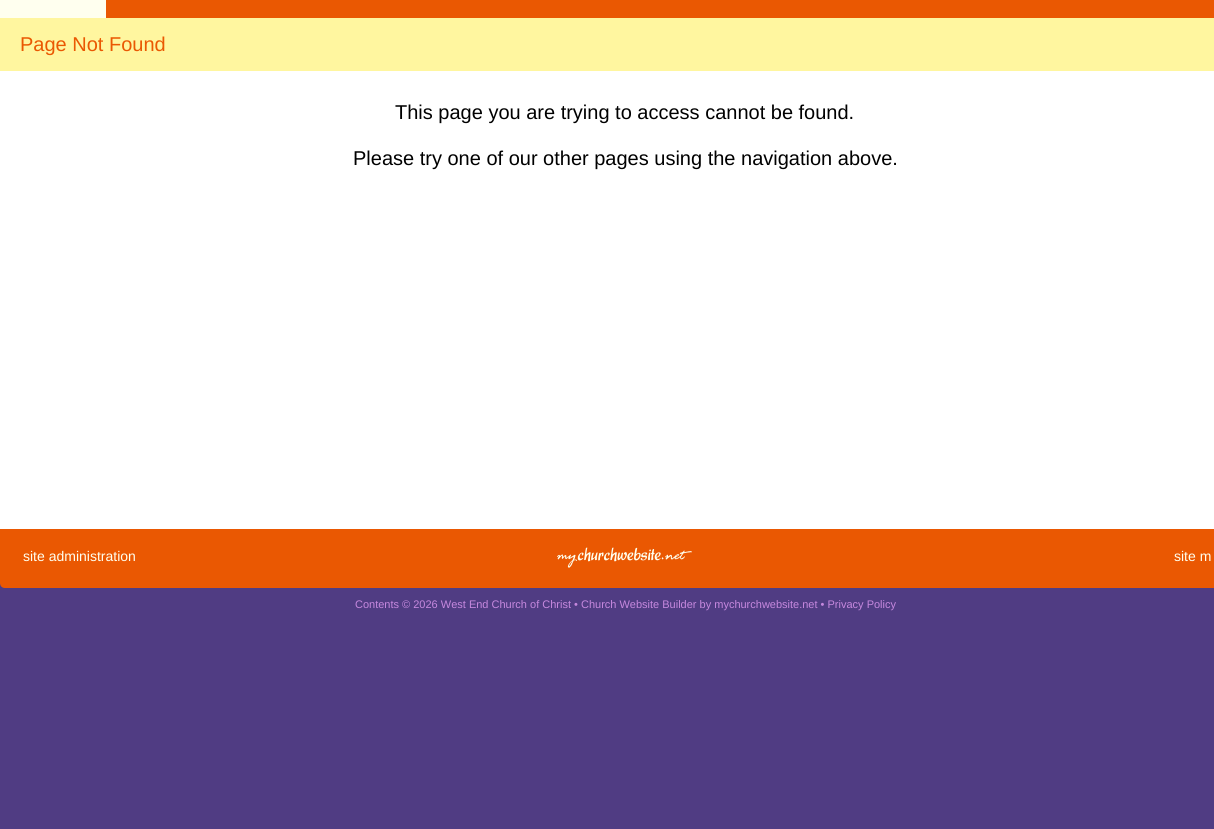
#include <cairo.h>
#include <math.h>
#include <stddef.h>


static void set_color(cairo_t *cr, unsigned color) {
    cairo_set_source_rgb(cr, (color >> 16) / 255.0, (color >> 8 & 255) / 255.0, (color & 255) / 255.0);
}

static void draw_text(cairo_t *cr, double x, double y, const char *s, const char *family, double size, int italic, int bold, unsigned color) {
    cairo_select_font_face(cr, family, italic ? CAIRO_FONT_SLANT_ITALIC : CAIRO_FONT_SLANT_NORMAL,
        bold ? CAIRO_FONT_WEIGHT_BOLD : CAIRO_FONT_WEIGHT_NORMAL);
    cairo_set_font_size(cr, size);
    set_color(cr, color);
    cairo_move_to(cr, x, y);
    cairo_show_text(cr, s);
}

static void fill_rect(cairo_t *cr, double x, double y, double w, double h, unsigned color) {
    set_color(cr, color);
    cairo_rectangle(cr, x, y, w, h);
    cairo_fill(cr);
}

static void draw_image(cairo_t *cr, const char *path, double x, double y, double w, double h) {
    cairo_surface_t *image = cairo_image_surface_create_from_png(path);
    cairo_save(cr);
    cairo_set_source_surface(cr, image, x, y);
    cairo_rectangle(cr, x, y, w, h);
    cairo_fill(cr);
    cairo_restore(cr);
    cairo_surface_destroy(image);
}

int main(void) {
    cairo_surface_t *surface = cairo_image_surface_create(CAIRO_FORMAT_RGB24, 1214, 829);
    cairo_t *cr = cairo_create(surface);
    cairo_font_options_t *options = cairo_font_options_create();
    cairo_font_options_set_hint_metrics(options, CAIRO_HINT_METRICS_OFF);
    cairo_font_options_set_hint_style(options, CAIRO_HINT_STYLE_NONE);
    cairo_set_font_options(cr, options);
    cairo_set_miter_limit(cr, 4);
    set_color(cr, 0x503C83);
    cairo_paint(cr);
    fill_rect(cr, 0, 0, 106, 18, 0xFFFFEF);
    fill_rect(cr, 106, 0, 1108, 18, 0xEA5802);
    fill_rect(cr, 0, 71, 1214, 458, 0xFFFFFF);
    fill_rect(cr, 0, 18, 1214, 53, 0xFFF69F);
    draw_text(cr, 20, 51, "Page Not Found", "Liberation Sans", 20, 0, 0, 0xEA5802);
    draw_text(cr, 395, 119, "This page you are trying to access cannot be found.", "Liberation Sans", 20, 0, 0, 0x000000);
    draw_text(cr, 353, 165, "Please try one of our other pages using the navigation above.", "Liberation Sans", 20, 0, 0, 0x000000);
    set_color(cr, 0xEA5802);
    cairo_new_path(cr);
    cairo_move_to(cr, 0, 529);
    cairo_line_to(cr, 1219, 529);
    cairo_line_to(cr, 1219, 583);
    cairo_curve_to(cr, 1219, 586, 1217, 588, 1214, 588);
    cairo_line_to(cr, 5, 588);
    cairo_curve_to(cr, 2, 588, 0, 586, 0, 583);
    cairo_close_path(cr);
    cairo_fill(cr);
    draw_text(cr, 23, 561, "site administration", "Liberation Sans", 14, 0, 0, 0xFFFFEF);
    draw_image(cr, "assets/img1.png", 557, 547, 135, 21);
    draw_text(cr, 1174, 561, "site m", "Liberation Sans", 14, 0, 0, 0xFFFFEF);
    draw_text(cr, 355, 608, "Contents © 2026 West End Church of Christ • Church Website Builder by mychurchwebsite.net • Privacy Policy", "Liberation Sans", 11, 0, 0, 0xC688DE);
    cairo_surface_write_to_png(surface, "output.png");
    cairo_font_options_destroy(options);
    cairo_destroy(cr);
    cairo_surface_destroy(surface);
    return 0;
}
